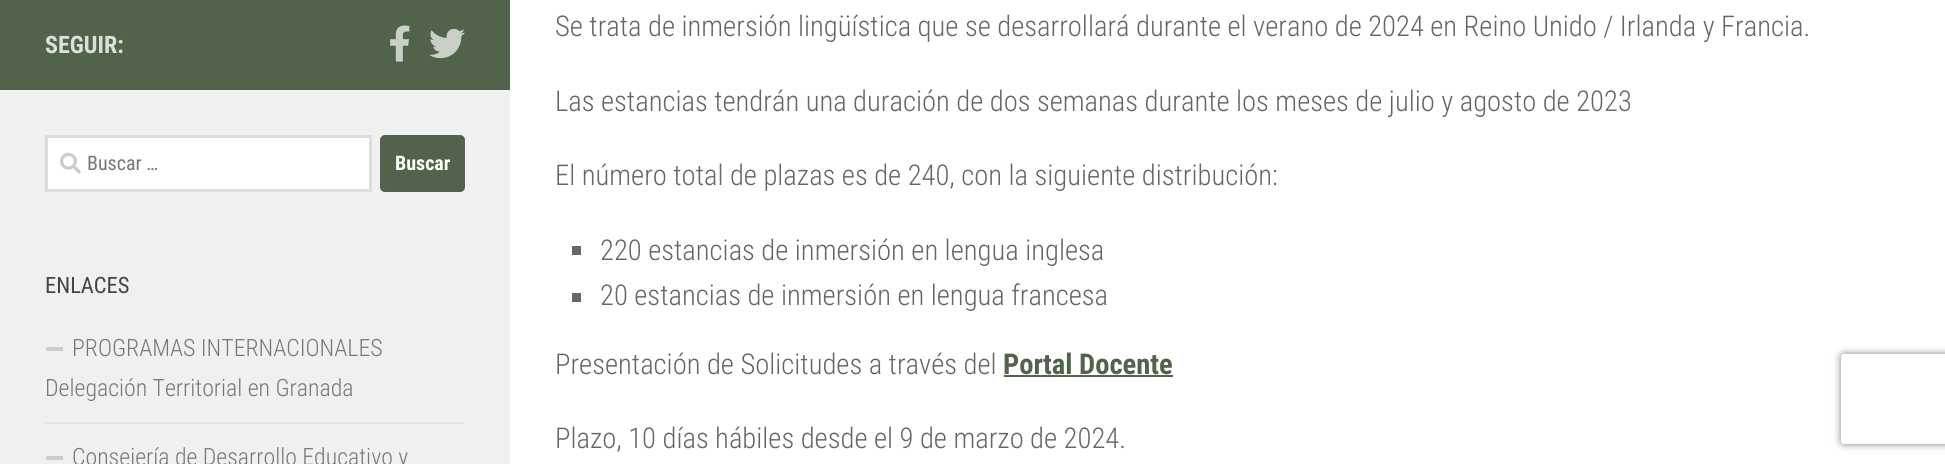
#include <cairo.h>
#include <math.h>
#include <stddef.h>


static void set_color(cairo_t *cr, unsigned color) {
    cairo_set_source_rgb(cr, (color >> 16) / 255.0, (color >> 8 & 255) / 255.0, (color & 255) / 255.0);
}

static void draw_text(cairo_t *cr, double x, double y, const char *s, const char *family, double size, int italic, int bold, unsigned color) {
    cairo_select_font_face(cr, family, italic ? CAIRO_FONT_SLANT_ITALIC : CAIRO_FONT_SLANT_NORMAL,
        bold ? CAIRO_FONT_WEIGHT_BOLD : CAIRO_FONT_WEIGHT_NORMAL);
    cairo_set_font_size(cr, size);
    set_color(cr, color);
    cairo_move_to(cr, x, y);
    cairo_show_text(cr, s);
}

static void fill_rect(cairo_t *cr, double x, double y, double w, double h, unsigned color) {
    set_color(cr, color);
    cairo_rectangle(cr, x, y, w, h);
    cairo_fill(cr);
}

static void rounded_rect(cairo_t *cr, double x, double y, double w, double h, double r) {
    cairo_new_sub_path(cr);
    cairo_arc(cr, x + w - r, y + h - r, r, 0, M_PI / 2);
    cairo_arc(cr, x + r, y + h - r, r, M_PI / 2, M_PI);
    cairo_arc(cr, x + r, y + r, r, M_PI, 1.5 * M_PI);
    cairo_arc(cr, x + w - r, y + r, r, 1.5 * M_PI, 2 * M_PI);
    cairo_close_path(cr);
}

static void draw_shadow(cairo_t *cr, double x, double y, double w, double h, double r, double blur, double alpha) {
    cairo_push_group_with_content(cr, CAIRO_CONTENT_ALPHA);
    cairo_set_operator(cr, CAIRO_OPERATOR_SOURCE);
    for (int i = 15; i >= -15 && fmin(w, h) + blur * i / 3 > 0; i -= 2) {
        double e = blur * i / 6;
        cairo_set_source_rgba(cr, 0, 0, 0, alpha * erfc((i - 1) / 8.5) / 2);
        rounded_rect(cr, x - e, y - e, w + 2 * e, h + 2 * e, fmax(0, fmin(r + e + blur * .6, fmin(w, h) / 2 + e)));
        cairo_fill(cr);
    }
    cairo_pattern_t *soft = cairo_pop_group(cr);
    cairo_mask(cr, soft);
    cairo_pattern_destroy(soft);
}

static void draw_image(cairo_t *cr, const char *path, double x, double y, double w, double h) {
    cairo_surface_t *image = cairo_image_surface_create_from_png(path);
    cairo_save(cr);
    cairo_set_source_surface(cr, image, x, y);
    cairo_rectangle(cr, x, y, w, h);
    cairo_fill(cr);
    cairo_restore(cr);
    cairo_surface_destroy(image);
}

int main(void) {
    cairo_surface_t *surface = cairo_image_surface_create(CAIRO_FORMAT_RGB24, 1945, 464);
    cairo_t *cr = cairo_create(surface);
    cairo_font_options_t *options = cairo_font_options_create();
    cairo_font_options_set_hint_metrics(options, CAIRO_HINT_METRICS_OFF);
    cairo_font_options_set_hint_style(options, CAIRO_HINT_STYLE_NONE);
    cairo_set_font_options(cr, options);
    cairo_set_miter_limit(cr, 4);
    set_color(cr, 0xFFFFFF);
    cairo_paint(cr);
    fill_rect(cr, 0, 0, 510, 90, 0x51634B);
    draw_text(cr, 45, 53, "SEGUIR:", "Roboto Condensed", 24, 0, 1, 0xDCE0DB);
    draw_image(cr, "assets/img1.png", 390, 25, 20, 37);
    draw_image(cr, "assets/img2.png", 429, 28, 36, 31);
    fill_rect(cr, 0, 90, 510, 374, 0xF0F0F0);
    set_color(cr, 0xFFFFFF);
    cairo_rectangle(cr, 46.5, 136.5, 324, 54);
    cairo_fill_preserve(cr);
    set_color(cr, 0xDDDDDD);
    cairo_set_line_width(cr, 3);
    cairo_stroke(cr);
    draw_image(cr, "assets/img3.png", 60, 152, 21, 22);
    draw_text(cr, 87, 170, "Buscar …", "Roboto Condensed", 20, 0, 0, 0x777777);
    set_color(cr, 0x51634B);
    rounded_rect(cr, 380, 135, 85, 57, 5);
    cairo_fill(cr);
    draw_text(cr, 395, 170, "Buscar", "Roboto Condensed", 20, 0, 1, 0xFFFFFF);
    draw_text(cr, 45, 293, "ENLACES", "Roboto Condensed", 22.5, 0, 0, 0x444444);
    fill_rect(cr, 45, 422, 420, 2, 0xE4E4E4);
    fill_rect(cr, 46, 347, 17, 4, 0xCCCCCC);
    draw_text(cr, 72, 356, "PROGRAMAS INTERNACIONALES", "Roboto Condensed Light", 23.8, 0, 0, 0x777777);
    draw_text(cr, 45, 396, "Delegación Territorial en Granada", "Roboto Condensed Light", 23.8, 0, 0, 0x777777);
    fill_rect(cr, 46, 456, 17, 4, 0xCCCCCC);
    draw_text(cr, 72, 465, "Consejería de Desarrollo Educativo y", "Roboto Condensed Light", 23.8, 0, 0, 0x777777);
    draw_text(cr, 555, 36, "Se trata de inmersión lingüística que se desarrollará durante el verano de 2024 en Reino Unido / Irlanda y Francia.", "Roboto Condensed Light", 28.6, 0, 0, 0x666666);
    draw_text(cr, 555, 111, "Las estancias tendrán una duración de dos semanas durante los meses de julio y agosto de 2023", "Roboto Condensed Light", 28.6, 0, 0, 0x666666);
    draw_text(cr, 555, 185, "El número total de plazas es de 240, con la siguiente distribución:", "Roboto Condensed Light", 28.6, 0, 0, 0x666666);
    fill_rect(cr, 572, 246, 9, 9, 0x666666);
    draw_text(cr, 600, 260, "220 estancias de inmersión en lengua inglesa", "Roboto Condensed Light", 28.6, 0, 0, 0x666666);
    fill_rect(cr, 572, 293, 9, 9, 0x666666);
    draw_text(cr, 600, 305, "20 estancias de inmersión en lengua francesa", "Roboto Condensed Light", 28.6, 0, 0, 0x666666);
    draw_text(cr, 555, 374, "Presentación de Solicitudes a través del", "Roboto Condensed Light", 28.6, 0, 0, 0x666666);
    draw_text(cr, 1003, 374, "Portal Docente", "Roboto Condensed", 28.6, 0, 1, 0x51634B);
    fill_rect(cr, 1004, 375, 169, 2, 0x51634B);
    draw_text(cr, 555, 448, "Plazo, 10 días hábiles desde el 9 de marzo de 2024.", "Roboto Condensed Light", 28.6, 0, 0, 0x666666);
    cairo_save(cr);
    cairo_set_fill_rule(cr, CAIRO_FILL_RULE_EVEN_ODD);
    cairo_new_path(cr);
    cairo_move_to(cr, 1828, 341);
    cairo_line_to(cr, 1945, 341);
    cairo_line_to(cr, 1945, 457);
    cairo_line_to(cr, 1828, 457);
    cairo_close_path(cr);
    cairo_move_to(cr, 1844, 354);
    cairo_line_to(cr, 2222, 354);
    cairo_curve_to(cr, 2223.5, 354, 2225, 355.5, 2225, 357);
    cairo_line_to(cr, 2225, 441);
    cairo_curve_to(cr, 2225, 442.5, 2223.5, 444, 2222, 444);
    cairo_line_to(cr, 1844, 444);
    cairo_curve_to(cr, 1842.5, 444, 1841, 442.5, 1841, 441);
    cairo_line_to(cr, 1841, 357);
    cairo_curve_to(cr, 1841, 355.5, 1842.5, 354, 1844, 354);
    cairo_close_path(cr);
    cairo_clip(cr);
    set_color(cr, 0x808080);
    draw_shadow(cr, 1841, 354, 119, 90, 3, 4, 1);
    cairo_restore(cr);
    cairo_surface_write_to_png(surface, "output.png");
    cairo_font_options_destroy(options);
    cairo_destroy(cr);
    cairo_surface_destroy(surface);
    return 0;
}
